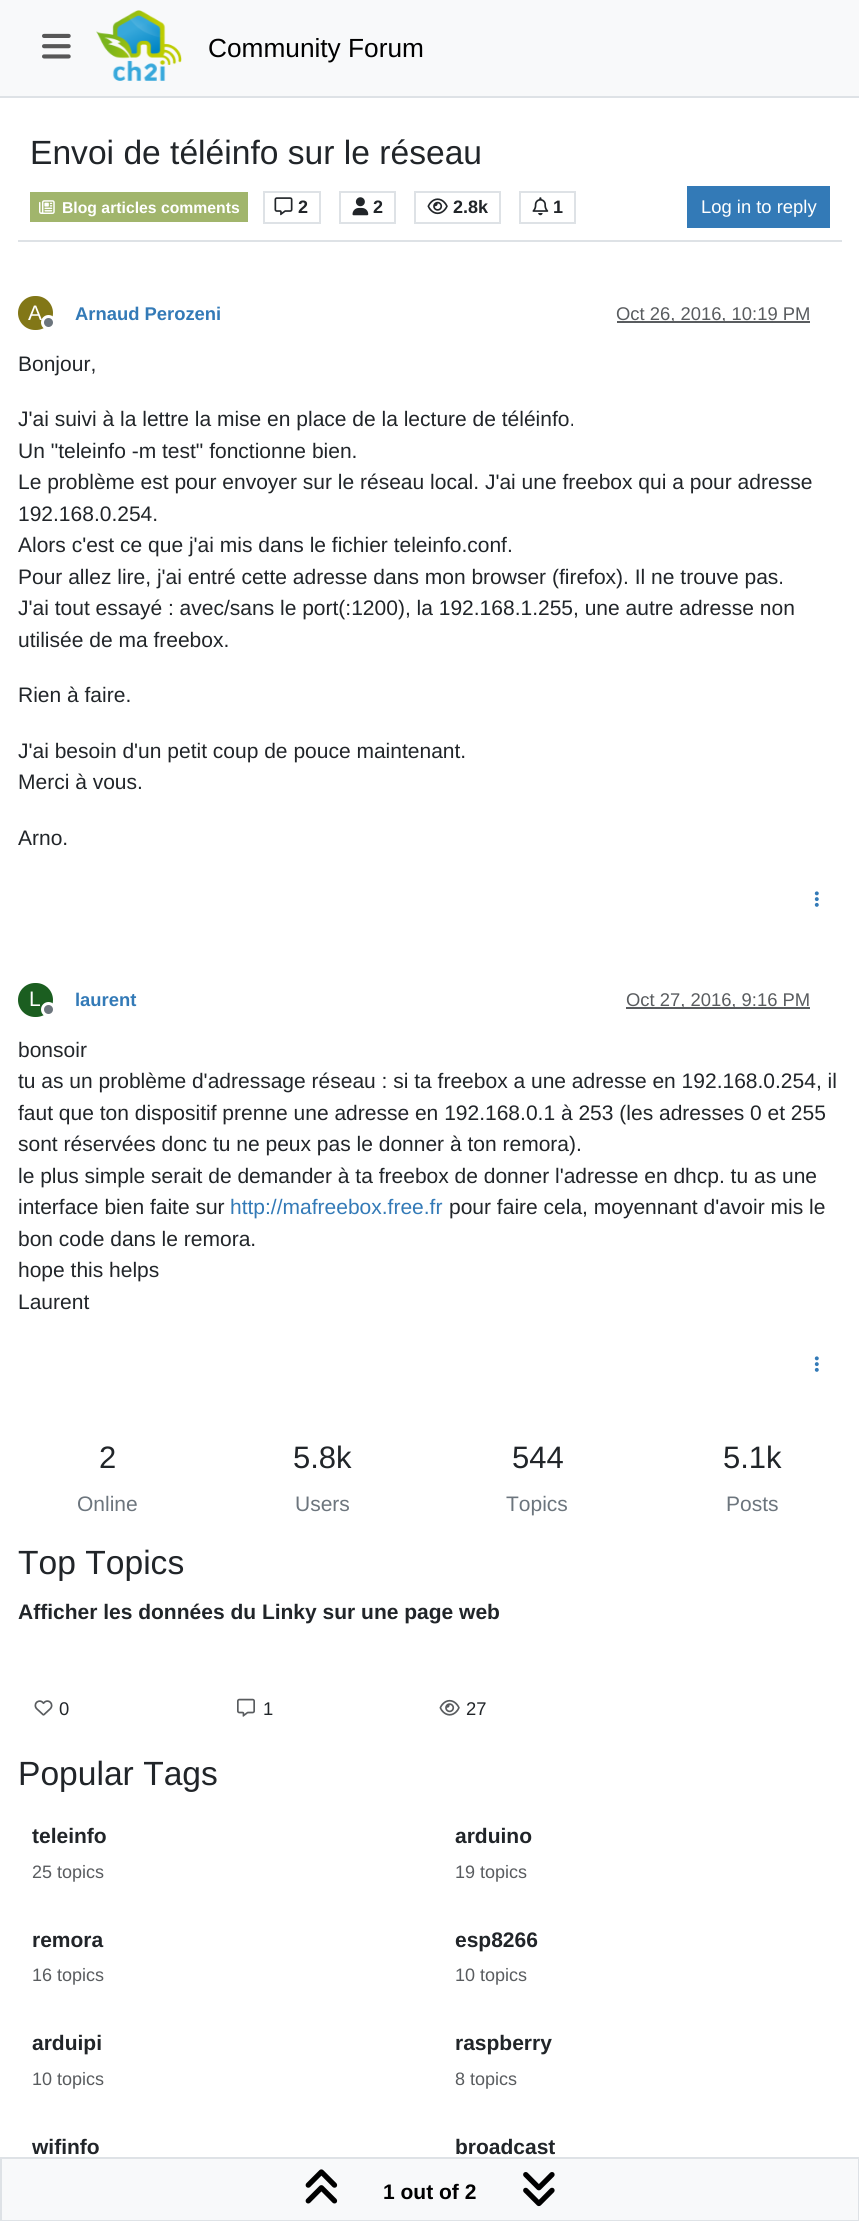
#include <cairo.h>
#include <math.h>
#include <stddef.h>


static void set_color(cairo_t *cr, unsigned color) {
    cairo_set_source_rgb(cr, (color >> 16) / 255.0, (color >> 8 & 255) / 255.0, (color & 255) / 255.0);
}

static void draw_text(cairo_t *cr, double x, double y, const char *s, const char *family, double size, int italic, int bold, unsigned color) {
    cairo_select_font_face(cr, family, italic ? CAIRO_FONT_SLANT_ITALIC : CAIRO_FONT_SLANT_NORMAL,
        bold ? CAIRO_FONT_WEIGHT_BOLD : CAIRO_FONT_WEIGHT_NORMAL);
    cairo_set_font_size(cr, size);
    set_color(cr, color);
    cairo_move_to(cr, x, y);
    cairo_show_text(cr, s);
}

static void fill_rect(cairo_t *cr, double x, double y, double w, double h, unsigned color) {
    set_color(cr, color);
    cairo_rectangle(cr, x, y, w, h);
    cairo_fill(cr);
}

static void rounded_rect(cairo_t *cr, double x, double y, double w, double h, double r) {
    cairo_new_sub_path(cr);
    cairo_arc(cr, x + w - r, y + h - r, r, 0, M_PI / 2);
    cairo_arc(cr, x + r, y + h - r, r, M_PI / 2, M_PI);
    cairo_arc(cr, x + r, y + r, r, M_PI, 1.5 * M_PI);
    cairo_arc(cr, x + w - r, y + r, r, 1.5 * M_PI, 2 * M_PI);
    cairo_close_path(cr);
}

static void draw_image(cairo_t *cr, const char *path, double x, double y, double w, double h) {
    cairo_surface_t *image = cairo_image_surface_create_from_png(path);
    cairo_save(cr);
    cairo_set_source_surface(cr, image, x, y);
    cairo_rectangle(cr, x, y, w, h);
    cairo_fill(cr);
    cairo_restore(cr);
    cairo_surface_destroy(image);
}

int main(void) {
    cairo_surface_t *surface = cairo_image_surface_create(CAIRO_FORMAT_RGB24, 859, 2221);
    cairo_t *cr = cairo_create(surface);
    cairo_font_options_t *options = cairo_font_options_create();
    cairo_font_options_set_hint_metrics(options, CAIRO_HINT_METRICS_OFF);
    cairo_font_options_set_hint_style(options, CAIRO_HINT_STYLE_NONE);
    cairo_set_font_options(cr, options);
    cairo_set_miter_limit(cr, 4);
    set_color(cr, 0xFFFFFF);
    cairo_paint(cr);
    fill_rect(cr, 0, 0, 859, 96, 0xF8F9FA);
    fill_rect(cr, 0, 96, 859, 2, 0xDEE2E6);
    draw_image(cr, "assets/img1.png", 42, 33, 29, 26);
    draw_image(cr, "assets/img2.png", 96, 10, 86, 71);
    draw_text(cr, 208, 57, "Community Forum", "Liberation Sans", 26.25, 0, 0, 0x000000);
    fill_rect(cr, 18, 240, 824, 2, 0xDEE2E6);
    draw_text(cr, 30, 164, "Envoi de téléinfo sur le réseau", "Liberation Sans", 33.6, 0, 0, 0x212529);
    fill_rect(cr, 30, 192, 218, 30, 0xA1B56C);
    draw_image(cr, "assets/img3.png", 39, 200, 16, 14);
    draw_text(cr, 62, 213, "Blog articles comments", "Liberation Sans", 15.75, 0, 1, 0xFFFFFF);
    cairo_rectangle(cr, 264, 192, 56, 31);
    set_color(cr, 0xDEE2E6);
    cairo_stroke(cr);
    draw_image(cr, "assets/img4.png", 274, 197, 19, 19);
    draw_text(cr, 298, 213, "2", "Liberation Sans", 18, 0, 1, 0x212529);
    cairo_rectangle(cr, 340, 192, 55, 31);
    set_color(cr, 0xDEE2E6);
    cairo_stroke(cr);
    draw_image(cr, "assets/img5.png", 352, 197, 17, 19);
    draw_text(cr, 373, 213, "2", "Liberation Sans", 18, 0, 1, 0x212529);
    cairo_rectangle(cr, 415, 192, 85, 31);
    set_color(cr, 0xDEE2E6);
    cairo_stroke(cr);
    draw_image(cr, "assets/img6.png", 427, 198, 21, 17);
    draw_text(cr, 453, 213, "2.8k", "Liberation Sans", 18, 0, 1, 0x212529);
    cairo_rectangle(cr, 520, 192, 55, 31);
    set_color(cr, 0xDEE2E6);
    cairo_stroke(cr);
    draw_image(cr, "assets/img7.png", 532, 197, 17, 19);
    draw_text(cr, 553, 213, "1", "Liberation Sans", 18, 0, 1, 0x212529);
    fill_rect(cr, 687, 186, 143, 42, 0x337AB7);
    draw_text(cr, 701, 213, "Log in to reply", "Liberation Sans", 18.4, 0, 0, 0xFFFFFF);
    set_color(cr, 0x827717);
    rounded_rect(cr, 18, 296, 35, 34, 17);
    cairo_fill(cr);
    draw_text(cr, 28, 320, "A", "Liberation Sans", 21, 0, 0, 0xFFFFFF);
    set_color(cr, 0x6C757D);
    cairo_new_path(cr);
    cairo_arc(cr, 48.5, 322.5, 6, 0, 2 * M_PI);
    cairo_fill_preserve(cr);
    set_color(cr, 0xFFFFFF);
    cairo_set_line_width(cr, 3);
    cairo_stroke(cr);
    draw_text(cr, 75, 320, "Arnaud Perozeni", "Liberation Sans", 18.4, 0, 1, 0x337AB7);
    fill_rect(cr, 617, 321, 193, 2, 0x595C5F);
    draw_text(cr, 616, 320, "Oct 26, 2016, 10:19 PM", "Liberation Sans", 18.4, 0, 0, 0x595C5F);
    draw_text(cr, 18, 371, "Bonjour,", "Liberation Sans", 21, 0, 0, 0x212529);
    draw_text(cr, 18, 426, "J'ai suivi à la lettre la mise en place de la lecture de téléinfo.", "Liberation Sans", 21, 0, 0, 0x212529);
    draw_text(cr, 18, 458, "Un \"teleinfo -m test\" fonctionne bien.", "Liberation Sans", 21, 0, 0, 0x212529);
    draw_text(cr, 18, 489, "Le problème est pour envoyer sur le réseau local. J'ai une freebox qui a pour adresse", "Liberation Sans", 21, 0, 0, 0x212529);
    draw_text(cr, 18, 521, "192.168.0.254.", "Liberation Sans", 21, 0, 0, 0x212529);
    draw_text(cr, 18, 552, "Alors c'est ce que j'ai mis dans le fichier teleinfo.conf.", "Liberation Sans", 21, 0, 0, 0x212529);
    draw_text(cr, 18, 584, "Pour allez lire, j'ai entré cette adresse dans mon browser (firefox). Il ne trouve pas.", "Liberation Sans", 21, 0, 0, 0x212529);
    draw_text(cr, 18, 615, "J'ai tout essayé : avec/sans le port(:1200), la 192.168.1.255, une autre adresse non", "Liberation Sans", 21, 0, 0, 0x212529);
    draw_text(cr, 18, 647, "utilisée de ma freebox.", "Liberation Sans", 21, 0, 0, 0x212529);
    draw_text(cr, 18, 702, "Rien à faire.", "Liberation Sans", 21, 0, 0, 0x212529);
    draw_text(cr, 18, 758, "J'ai besoin d'un petit coup de pouce maintenant.", "Liberation Sans", 21, 0, 0, 0x212529);
    draw_text(cr, 18, 789, "Merci à vous.", "Liberation Sans", 21, 0, 0, 0x212529);
    draw_text(cr, 18, 845, "Arno.", "Liberation Sans", 21, 0, 0, 0x212529);
    draw_image(cr, "assets/img8.png", 814, 891, 5, 16);
    set_color(cr, 0x1B5E20);
    rounded_rect(cr, 18, 983, 35, 34, 17);
    cairo_fill(cr);
    draw_text(cr, 29, 1006, "L", "Liberation Sans", 21, 0, 0, 0xFFFFFF);
    set_color(cr, 0x6C757D);
    cairo_new_path(cr);
    cairo_arc(cr, 48.5, 1009.5, 6, 0, 2 * M_PI);
    cairo_fill_preserve(cr);
    set_color(cr, 0xFFFFFF);
    cairo_stroke(cr);
    draw_text(cr, 75, 1006, "laurent", "Liberation Sans", 18.4, 0, 1, 0x337AB7);
    fill_rect(cr, 626, 1007, 184, 2, 0x595C5F);
    draw_text(cr, 626, 1006, "Oct 27, 2016, 9:16 PM", "Liberation Sans", 18.4, 0, 0, 0x595C5F);
    draw_text(cr, 18, 1057, "bonsoir", "Liberation Sans", 21, 0, 0, 0x212529);
    draw_text(cr, 18, 1088, "tu as un problème d'adressage réseau : si ta freebox a une adresse en 192.168.0.254, il", "Liberation Sans", 21, 0, 0, 0x212529);
    draw_text(cr, 18, 1120, "faut que ton dispositif prenne une adresse en 192.168.0.1 à 253 (les adresses 0 et 255", "Liberation Sans", 21, 0, 0, 0x212529);
    draw_text(cr, 18, 1151, "sont réservées donc tu ne peux pas le donner à ton remora).", "Liberation Sans", 21, 0, 0, 0x212529);
    draw_text(cr, 18, 1183, "le plus simple serait de demander à ta freebox de donner l'adresse en dhcp. tu as une", "Liberation Sans", 21, 0, 0, 0x212529);
    draw_text(cr, 18, 1214, "interface bien faite sur", "Liberation Sans", 21, 0, 0, 0x212529);
    draw_text(cr, 230, 1214, "http://mafreebox.free.fr", "Liberation Sans", 21, 0, 0, 0x337AB7);
    draw_text(cr, 449, 1214, "pour faire cela, moyennant d'avoir mis le", "Liberation Sans", 21, 0, 0, 0x212529);
    draw_text(cr, 18, 1246, "bon code dans le remora.", "Liberation Sans", 21, 0, 0, 0x212529);
    draw_text(cr, 18, 1277, "hope this helps", "Liberation Sans", 21, 0, 0, 0x212529);
    draw_text(cr, 18, 1309, "Laurent", "Liberation Sans", 21, 0, 0, 0x212529);
    draw_image(cr, "assets/img8.png", 814, 1356, 5, 16);
    set_color(cr, 0xF8F9FA);
    cairo_rectangle(cr, 1, 2158, 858, 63);
    cairo_fill_preserve(cr);
    set_color(cr, 0xDEE2E6);
    cairo_set_line_width(cr, 2);
    cairo_stroke(cr);
    draw_image(cr, "assets/img9.png", 305, 2169, 33, 35);
    draw_text(cr, 383, 2199, "1 out of 2", "Liberation Sans", 21, 0, 1, 0x000000);
    draw_image(cr, "assets/img10.png", 523, 2172, 32, 35);
    draw_text(cr, 99, 1468, "2", "Liberation Sans", 31, 0, 0, 0x212529);
    draw_text(cr, 77, 1511, "Online", "Liberation Sans", 21, 0, 0, 0x6C757D);
    draw_text(cr, 293, 1468, "5.8k", "Liberation Sans", 31, 0, 0, 0x212529);
    draw_text(cr, 295, 1511, "Users", "Liberation Sans", 21, 0, 0, 0x6C757D);
    draw_text(cr, 512, 1468, "544", "Liberation Sans", 31, 0, 0, 0x212529);
    draw_text(cr, 506, 1511, "Topics", "Liberation Sans", 21, 0, 0, 0x6C757D);
    draw_text(cr, 723, 1468, "5.1k", "Liberation Sans", 31, 0, 0, 0x212529);
    draw_text(cr, 726, 1511, "Posts", "Liberation Sans", 21, 0, 0, 0x6C757D);
    draw_text(cr, 18, 1574, "Top Topics", "Liberation Sans", 33.6, 0, 0, 0x212529);
    draw_text(cr, 18, 1619, "Afficher les données du Linky sur une page web", "Liberation Sans", 21, 0, 1, 0x212529);
    draw_image(cr, "assets/img11.png", 34, 1700, 19, 16);
    draw_text(cr, 59, 1715, "0", "Liberation Sans", 18.4, 0, 0, 0x212529);
    draw_image(cr, "assets/img12.png", 237, 1698, 18, 19);
    draw_text(cr, 263, 1715, "1", "Liberation Sans", 18.4, 0, 0, 0x212529);
    draw_image(cr, "assets/img13.png", 439, 1699, 21, 17);
    draw_text(cr, 466, 1715, "27", "Liberation Sans", 18.4, 0, 0, 0x212529);
    draw_text(cr, 18, 1785, "Popular Tags", "Liberation Sans", 33.6, 0, 0, 0x212529);
    draw_text(cr, 32, 1843, "teleinfo", "Liberation Sans", 21, 0, 1, 0x212529);
    draw_text(cr, 32, 1878, "25 topics", "Liberation Sans", 18, 0, 0, 0x595C5F);
    draw_text(cr, 455, 1843, "arduino", "Liberation Sans", 21, 0, 1, 0x212529);
    draw_text(cr, 455, 1878, "19 topics", "Liberation Sans", 18, 0, 0, 0x595C5F);
    draw_text(cr, 32, 1947, "remora", "Liberation Sans", 21, 0, 1, 0x212529);
    draw_text(cr, 32, 1981, "16 topics", "Liberation Sans", 18, 0, 0, 0x595C5F);
    draw_text(cr, 455, 1947, "esp8266", "Liberation Sans", 21, 0, 1, 0x212529);
    draw_text(cr, 455, 1981, "10 topics", "Liberation Sans", 18, 0, 0, 0x595C5F);
    draw_text(cr, 32, 2050, "arduipi", "Liberation Sans", 21, 0, 1, 0x212529);
    draw_text(cr, 32, 2085, "10 topics", "Liberation Sans", 18, 0, 0, 0x595C5F);
    draw_text(cr, 455, 2050, "raspberry", "Liberation Sans", 21, 0, 1, 0x212529);
    draw_text(cr, 455, 2085, "8 topics", "Liberation Sans", 18, 0, 0, 0x595C5F);
    draw_text(cr, 32, 2154, "wifinfo", "Liberation Sans", 21, 0, 1, 0x212529);
    draw_text(cr, 455, 2154, "broadcast", "Liberation Sans", 21, 0, 1, 0x212529);
    cairo_surface_write_to_png(surface, "output.png");
    cairo_font_options_destroy(options);
    cairo_destroy(cr);
    cairo_surface_destroy(surface);
    return 0;
}
